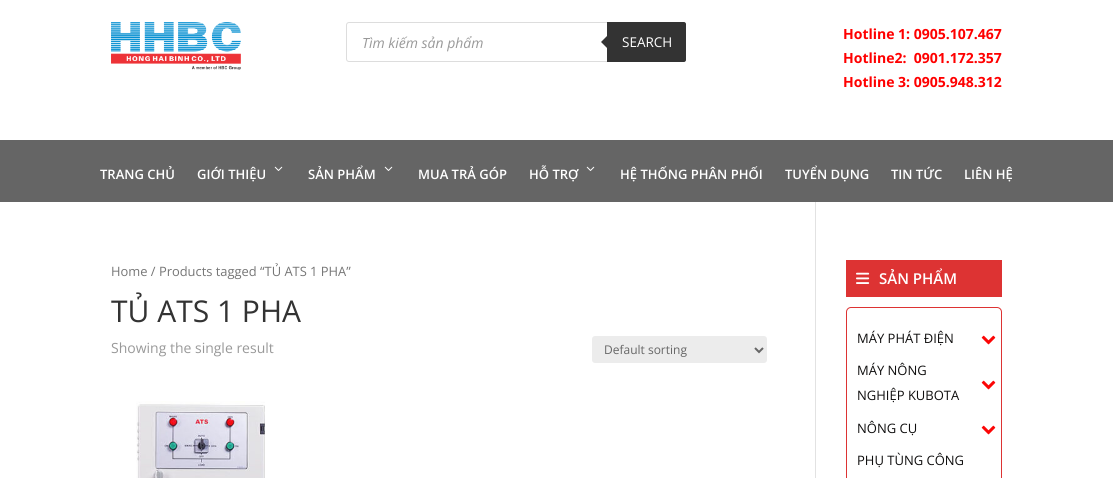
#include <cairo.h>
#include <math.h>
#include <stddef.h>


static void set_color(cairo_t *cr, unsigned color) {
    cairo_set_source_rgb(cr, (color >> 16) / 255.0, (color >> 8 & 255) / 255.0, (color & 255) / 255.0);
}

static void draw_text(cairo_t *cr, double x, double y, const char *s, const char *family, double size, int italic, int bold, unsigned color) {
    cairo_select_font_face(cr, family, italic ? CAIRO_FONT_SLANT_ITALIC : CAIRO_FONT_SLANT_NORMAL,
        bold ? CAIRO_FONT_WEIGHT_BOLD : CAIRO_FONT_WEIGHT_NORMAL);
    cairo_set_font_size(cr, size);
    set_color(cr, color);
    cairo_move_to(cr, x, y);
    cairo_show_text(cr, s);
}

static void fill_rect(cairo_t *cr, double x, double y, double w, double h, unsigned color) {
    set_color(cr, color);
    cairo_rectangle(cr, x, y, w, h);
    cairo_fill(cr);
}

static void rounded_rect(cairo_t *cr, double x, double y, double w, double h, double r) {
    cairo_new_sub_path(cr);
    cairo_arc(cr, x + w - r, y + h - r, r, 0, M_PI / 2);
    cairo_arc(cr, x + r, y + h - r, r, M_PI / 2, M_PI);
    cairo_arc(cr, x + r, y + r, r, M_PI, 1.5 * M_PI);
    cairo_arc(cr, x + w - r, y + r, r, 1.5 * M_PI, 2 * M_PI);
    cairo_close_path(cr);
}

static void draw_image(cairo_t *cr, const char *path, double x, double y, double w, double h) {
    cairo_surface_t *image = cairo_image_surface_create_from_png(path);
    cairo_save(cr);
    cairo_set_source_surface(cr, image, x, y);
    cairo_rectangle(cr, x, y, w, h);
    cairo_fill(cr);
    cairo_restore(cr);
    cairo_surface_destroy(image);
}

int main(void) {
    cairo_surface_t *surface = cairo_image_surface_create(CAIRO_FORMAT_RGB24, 1113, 478);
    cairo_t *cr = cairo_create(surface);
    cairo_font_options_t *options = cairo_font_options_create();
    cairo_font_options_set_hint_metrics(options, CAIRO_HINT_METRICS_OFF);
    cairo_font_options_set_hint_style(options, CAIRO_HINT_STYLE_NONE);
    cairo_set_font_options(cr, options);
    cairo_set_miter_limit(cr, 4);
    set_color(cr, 0xFFFFFF);
    cairo_paint(cr);
    draw_image(cr, "assets/img1.png", 111, 22, 130, 48);
    rounded_rect(cr, 346.5, 22.5, 339, 39, 2.5);
    set_color(cr, 0xDDDDDD);
    cairo_set_line_width(cr, 1);
    cairo_stroke(cr);
    draw_text(cr, 362, 48, "Tìm kiếm sản phẩm", "Open Sans", 14, 1, 0, 0x999999);
    set_color(cr, 0x333333);
    cairo_new_path(cr);
    cairo_move_to(cr, 607, 22);
    cairo_line_to(cr, 684, 22);
    cairo_curve_to(cr, 685, 22, 686, 23, 686, 24);
    cairo_line_to(cr, 686, 60);
    cairo_curve_to(cr, 686, 61, 685, 62, 684, 62);
    cairo_line_to(cr, 607, 62);
    cairo_close_path(cr);
    cairo_fill(cr);
    cairo_new_path(cr);
    cairo_move_to(cr, 609, 34);
    cairo_line_to(cr, 609, 50);
    cairo_line_to(cr, 601, 42);
    cairo_close_path(cr);
    cairo_fill(cr);
    draw_text(cr, 622, 47, "SEARCH", "Open Sans", 13.5, 0, 0, 0xFFFFFF);
    draw_text(cr, 843, 39, "Hotline 1: 0905.107.467", "Open Sans", 14, 0, 1, 0xFF0000);
    draw_text(cr, 843, 63, "Hotline2:  0901.172.357", "Open Sans", 14, 0, 1, 0xFF0000);
    draw_text(cr, 843, 87, "Hotline 3: 0905.948.312", "Open Sans", 14, 0, 1, 0xFF0000);
    fill_rect(cr, 0, 140, 1113, 62, 0x656565);
    draw_text(cr, 100, 179, "TRANG CHỦ", "Open Sans SemiBold", 13, 0, 0, 0xFFFFFF);
    draw_text(cr, 197, 179, "GIỚI THIỆU", "Open Sans SemiBold", 13, 0, 0, 0xFFFFFF);
    draw_image(cr, "assets/img2.png", 274, 166, 9, 5);
    draw_text(cr, 308, 179, "SẢN PHẨM", "Open Sans SemiBold", 13, 0, 0, 0xFFFFFF);
    draw_image(cr, "assets/img2.png", 384, 166, 9, 5);
    draw_text(cr, 418, 179, "MUA TRẢ GÓP", "Open Sans SemiBold", 13, 0, 0, 0xFFFFFF);
    draw_text(cr, 529, 179, "HỖ TRỢ", "Open Sans SemiBold", 13, 0, 0, 0xFFFFFF);
    draw_image(cr, "assets/img2.png", 586, 166, 9, 5);
    draw_text(cr, 620, 179, "HỆ THỐNG PHÂN PHỐI", "Open Sans SemiBold", 13, 0, 0, 0xFFFFFF);
    draw_text(cr, 785, 179, "TUYỂN DỤNG", "Open Sans SemiBold", 13, 0, 0, 0xFFFFFF);
    draw_text(cr, 891, 179, "TIN TỨC", "Open Sans SemiBold", 13, 0, 0, 0xFFFFFF);
    draw_text(cr, 964, 179, "LIÊN HỆ", "Open Sans SemiBold", 13, 0, 0, 0xFFFFFF);
    fill_rect(cr, 815, 202, 1, 276, 0xE2E2E2);
    draw_text(cr, 111, 276, "Home / Products tagged “TỦ ATS 1 PHA”", "Open Sans", 12.9, 0, 0, 0x767676);
    draw_text(cr, 111, 322, "TỦ ATS 1 PHA", "Open Sans", 30, 0, 0, 0x333333);
    draw_text(cr, 111, 353, "Showing the single result", "Open Sans", 14, 0, 0, 0x999999);
    set_color(cr, 0xECECEC);
    rounded_rect(cr, 592, 336, 175, 27, 3);
    cairo_fill(cr);
    cairo_new_path(cr);
    cairo_move_to(cr, 755, 348);
    cairo_line_to(cr, 759, 352);
    cairo_line_to(cr, 763, 348);
    set_color(cr, 0x666666);
    cairo_set_line_width(cr, 2);
    cairo_stroke(cr);
    draw_text(cr, 604, 354, "Default sorting", "Open Sans", 12, 0, 0, 0x666666);
    draw_image(cr, "assets/img3.png", 136, 401, 129, 77);
    fill_rect(cr, 846, 260, 156, 37, 0xDD3333);
    draw_image(cr, "assets/img4.png", 856, 272, 14, 12);
    draw_text(cr, 879, 284, "SẢN PHẨM", "Open Sans SemiBold", 15, 0, 0, 0xFFFFFF);
    rounded_rect(cr, 846.5, 307.5, 155, 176, 4.5);
    set_color(cr, 0xDD3333);
    cairo_set_line_width(cr, 1);
    cairo_stroke(cr);
    draw_text(cr, 857, 343, "MÁY PHÁT ĐIỆN", "Open Sans", 13, 0, 0, 0x0F0E0E);
    draw_image(cr, "assets/img5.png", 981, 335, 15, 10);
    draw_text(cr, 857, 375, "MÁY NÔNG", "Open Sans", 13, 0, 0, 0x0F0E0E);
    draw_text(cr, 857, 400, "NGHIỆP KUBOTA", "Open Sans", 13, 0, 0, 0x0F0E0E);
    draw_image(cr, "assets/img5.png", 981, 380, 15, 10);
    draw_text(cr, 857, 433, "NÔNG CỤ", "Open Sans", 13, 0, 0, 0x0F0E0E);
    draw_image(cr, "assets/img5.png", 981, 425, 15, 10);
    draw_text(cr, 857, 465, "PHỤ TÙNG CÔNG", "Open Sans", 13, 0, 0, 0x0F0E0E);
    cairo_surface_write_to_png(surface, "output.png");
    cairo_font_options_destroy(options);
    cairo_destroy(cr);
    cairo_surface_destroy(surface);
    return 0;
}
